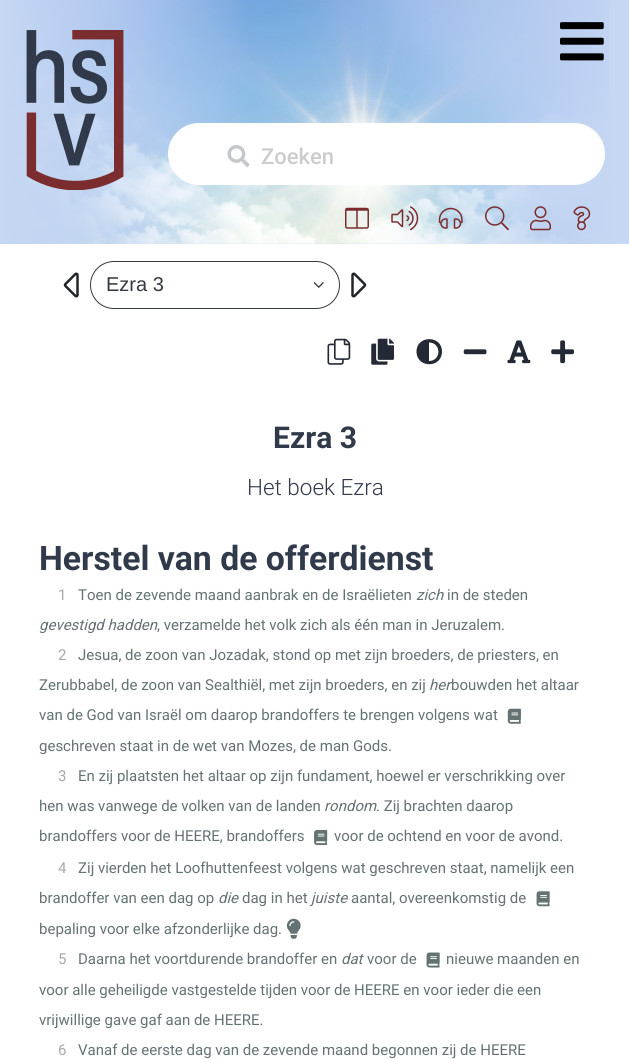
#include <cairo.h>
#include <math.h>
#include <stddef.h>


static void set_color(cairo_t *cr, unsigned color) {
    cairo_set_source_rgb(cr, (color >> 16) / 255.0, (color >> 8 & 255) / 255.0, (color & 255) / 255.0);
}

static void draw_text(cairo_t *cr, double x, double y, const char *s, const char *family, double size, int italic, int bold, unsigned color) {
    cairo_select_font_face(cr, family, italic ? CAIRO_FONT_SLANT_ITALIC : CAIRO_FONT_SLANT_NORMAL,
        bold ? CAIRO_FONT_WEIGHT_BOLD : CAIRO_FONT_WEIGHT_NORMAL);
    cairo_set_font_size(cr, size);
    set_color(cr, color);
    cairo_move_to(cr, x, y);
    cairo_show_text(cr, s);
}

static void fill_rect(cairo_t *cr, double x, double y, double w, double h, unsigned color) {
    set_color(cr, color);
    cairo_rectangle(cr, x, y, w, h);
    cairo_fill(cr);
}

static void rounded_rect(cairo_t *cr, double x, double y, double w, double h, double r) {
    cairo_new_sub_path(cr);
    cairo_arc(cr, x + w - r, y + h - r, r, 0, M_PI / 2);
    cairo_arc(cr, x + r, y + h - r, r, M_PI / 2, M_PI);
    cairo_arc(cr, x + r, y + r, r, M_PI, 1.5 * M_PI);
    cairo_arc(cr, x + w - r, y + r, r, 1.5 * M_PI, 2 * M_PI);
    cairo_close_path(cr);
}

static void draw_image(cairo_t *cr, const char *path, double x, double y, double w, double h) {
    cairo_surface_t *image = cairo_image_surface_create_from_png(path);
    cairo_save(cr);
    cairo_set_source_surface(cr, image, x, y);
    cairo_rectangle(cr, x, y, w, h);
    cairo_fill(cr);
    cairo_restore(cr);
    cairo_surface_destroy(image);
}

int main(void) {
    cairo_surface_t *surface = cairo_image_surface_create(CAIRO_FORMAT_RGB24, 629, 1059);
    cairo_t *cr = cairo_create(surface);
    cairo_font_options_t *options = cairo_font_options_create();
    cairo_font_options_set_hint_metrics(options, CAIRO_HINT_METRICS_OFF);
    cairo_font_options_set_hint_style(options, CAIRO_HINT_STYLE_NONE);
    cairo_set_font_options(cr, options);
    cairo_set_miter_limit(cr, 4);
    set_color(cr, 0xC6D7F3);
    cairo_paint(cr);
    draw_image(cr, "assets/img1.png", 3, 0, 606, 244);
    draw_image(cr, "assets/img2.png", 26, 30, 98, 160);
    draw_image(cr, "assets/img3.png", 560, 22, 44, 39);
    set_color(cr, 0xFFFFFF);
    rounded_rect(cr, 168, 123, 437, 62, 31);
    cairo_fill(cr);
    draw_image(cr, "assets/img4.png", 227, 145, 23, 22);
    draw_text(cr, 261, 164, "Zoeken", "Roboto Medium", 22, 0, 0, 0xCCCCCC);
    fill_rect(cr, 0, 244, 629, 815, 0xFFFFFF);
    draw_image(cr, "assets/img5.png", 345, 207, 24, 22);
    draw_image(cr, "assets/img6.png", 391, 206, 28, 25);
    draw_image(cr, "assets/img7.png", 438, 207, 25, 22);
    draw_image(cr, "assets/img8.png", 485, 206, 24, 25);
    draw_image(cr, "assets/img9.png", 530, 206, 21, 25);
    draw_image(cr, "assets/img10.png", 573, 206, 18, 25);
    draw_image(cr, "assets/img11.png", 63, 272, 16, 26);
    rounded_rect(cr, 90.5, 261.5, 249, 47, 23.5);
    set_color(cr, 0x343A40);
    cairo_set_line_width(cr, 1);
    cairo_stroke(cr);
    draw_text(cr, 106, 291, "Ezra 3", "Liberation Sans", 20, 0, 0, 0x343A40);
    draw_image(cr, "assets/img12.png", 313, 282, 11, 6);
    draw_image(cr, "assets/img13.png", 351, 272, 16, 26);
    draw_image(cr, "assets/img14.png", 327, 338, 24, 27);
    draw_image(cr, "assets/img15.png", 371, 338, 23, 27);
    set_color(cr, 0x232935);
    cairo_new_path(cr);
    cairo_move_to(cr, 416.5, 351.5);
    cairo_curve_to(cr, 416.5, 368.5, 442, 368.5, 442, 351.5);
    cairo_curve_to(cr, 442, 335, 416.5, 335, 416.5, 351.5);
    cairo_close_path(cr);
    cairo_move_to(cr, 429, 361);
    cairo_line_to(cr, 429, 342.5);
    cairo_curve_to(cr, 441.5, 342.5, 441.5, 361, 429, 361);
    cairo_close_path(cr);
    cairo_fill(cr);
    draw_image(cr, "assets/img16.png", 463, 349, 24, 6);
    draw_image(cr, "assets/img17.png", 507, 340, 24, 24);
    draw_image(cr, "assets/img18.png", 551, 340, 23, 24);
    draw_text(cr, 273, 448, "Ezra 3", "Roboto", 30, 0, 1, 0x303A4A);
    draw_text(cr, 247, 495, "Het boek Ezra", "Roboto Light", 22.5, 0, 0, 0x303A4A);
    draw_text(cr, 39, 570, "Herstel van de offerdienst", "Roboto", 33.75, 0, 1, 0x303A4A);
    draw_text(cr, 58, 600, "1", "Roboto", 15, 0, 0, 0xA9A9A9);
    draw_text(cr, 78, 600, "Toen de zevende maand aanbrak en de Israëlieten", "Roboto", 15, 0, 0, 0x647273);
    draw_text(cr, 416, 600, "zich", "Roboto", 15, 1, 0, 0x647273);
    draw_text(cr, 447, 600, "in de steden", "Roboto", 15, 0, 0, 0x647273);
    draw_text(cr, 39, 630, "gevestigd hadden", "Roboto", 15, 1, 0, 0x647273);
    draw_text(cr, 157, 630, ", verzamelde het volk zich als één man in Jeruzalem.", "Roboto", 15, 0, 0, 0x647273);
    draw_text(cr, 58, 660, "2", "Roboto", 15, 0, 0, 0xA9A9A9);
    draw_text(cr, 78, 660, "Jesua, de zoon van Jozadak, stond op met zijn broeders, de priesters, en", "Roboto", 15, 0, 0, 0x647273);
    draw_text(cr, 39, 690, "Zerubbabel, de zoon van Sealthiël, met zijn broeders, en zij", "Roboto", 15, 0, 0, 0x647273);
    draw_text(cr, 429, 690, "her", "Roboto", 15, 1, 0, 0x647273);
    draw_text(cr, 451, 690, "bouwden het altaar", "Roboto", 15, 0, 0, 0x647273);
    draw_text(cr, 39, 720, "van de God van Israël om daarop brandoffers te brengen volgens wat", "Roboto", 15, 0, 0, 0x647273);
    draw_image(cr, "assets/img19.png", 507, 708, 14, 16);
    draw_text(cr, 39, 751, "geschreven staat in de wet van Mozes, de man Gods.", "Roboto", 15, 0, 0, 0x647273);
    draw_text(cr, 58, 781, "3", "Roboto", 15, 0, 0, 0xA9A9A9);
    draw_text(cr, 78, 781, "En zij plaatsten het altaar op zijn fundament, hoewel er verschrikking over", "Roboto", 15, 0, 0, 0x647273);
    draw_text(cr, 39, 811, "hen was vanwege de volken van de landen", "Roboto", 15, 0, 0, 0x647273);
    draw_text(cr, 324, 811, "rondom", "Roboto", 15, 1, 0, 0x647273);
    draw_text(cr, 376, 811, ". Zij brachten daarop", "Roboto", 15, 0, 0, 0x647273);
    draw_text(cr, 39, 841, "brandoffers voor de HEERE, brandoffers", "Roboto", 15, 0, 0, 0x647273);
    draw_image(cr, "assets/img20.png", 314, 830, 14, 15);
    draw_text(cr, 334, 841, "voor de ochtend en voor de avond.", "Roboto", 15, 0, 0, 0x647273);
    draw_text(cr, 58, 873, "4", "Roboto", 15, 0, 0, 0xA9A9A9);
    draw_text(cr, 78, 873, "Zij vierden het Loofhuttenfeest volgens wat geschreven staat, namelijk een", "Roboto", 15, 0, 0, 0x647273);
    draw_text(cr, 39, 903, "brandoffer van een dag op", "Roboto", 15, 0, 0, 0x647273);
    draw_text(cr, 218, 903, "die", "Roboto", 15, 1, 0, 0x647273);
    draw_text(cr, 242, 903, "dag in het", "Roboto", 15, 0, 0, 0x647273);
    draw_text(cr, 311, 903, "juiste", "Roboto", 15, 1, 0, 0x647273);
    draw_text(cr, 351, 903, "aantal, overeenkomstig de", "Roboto", 15, 0, 0, 0x647273);
    draw_image(cr, "assets/img21.png", 536, 891, 14, 16);
    draw_text(cr, 39, 934, "bepaling voor elke afzonderlijke dag.", "Roboto", 15, 0, 0, 0x647273);
    draw_image(cr, "assets/img22.png", 286, 918, 15, 21);
    draw_text(cr, 58, 964, "5", "Roboto", 15, 0, 0, 0xA9A9A9);
    draw_text(cr, 78, 964, "Daarna het voortdurende brandoffer en", "Roboto", 15, 0, 0, 0x647273);
    draw_text(cr, 341, 964, "dat", "Roboto", 15, 1, 0, 0x647273);
    draw_text(cr, 367, 964, "voor de", "Roboto", 15, 0, 0, 0x647273);
    draw_image(cr, "assets/img23.png", 426, 952, 14, 16);
    draw_text(cr, 446, 964, "nieuwe maanden en", "Roboto", 15, 0, 0, 0x647273);
    draw_text(cr, 39, 995, "voor alle geheiligde vastgestelde tijden voor de HEERE en voor ieder die een", "Roboto", 15, 0, 0, 0x647273);
    draw_text(cr, 39, 1025, "vrijwillige gave gaf aan de HEERE.", "Roboto", 15, 0, 0, 0x647273);
    draw_text(cr, 58, 1055, "6", "Roboto", 15, 0, 0, 0xA9A9A9);
    draw_text(cr, 78, 1055, "Vanaf de eerste dag van de zevende maand begonnen zij de HEERE", "Roboto", 15, 0, 0, 0x647273);
    cairo_surface_write_to_png(surface, "output.png");
    cairo_font_options_destroy(options);
    cairo_destroy(cr);
    cairo_surface_destroy(surface);
    return 0;
}
